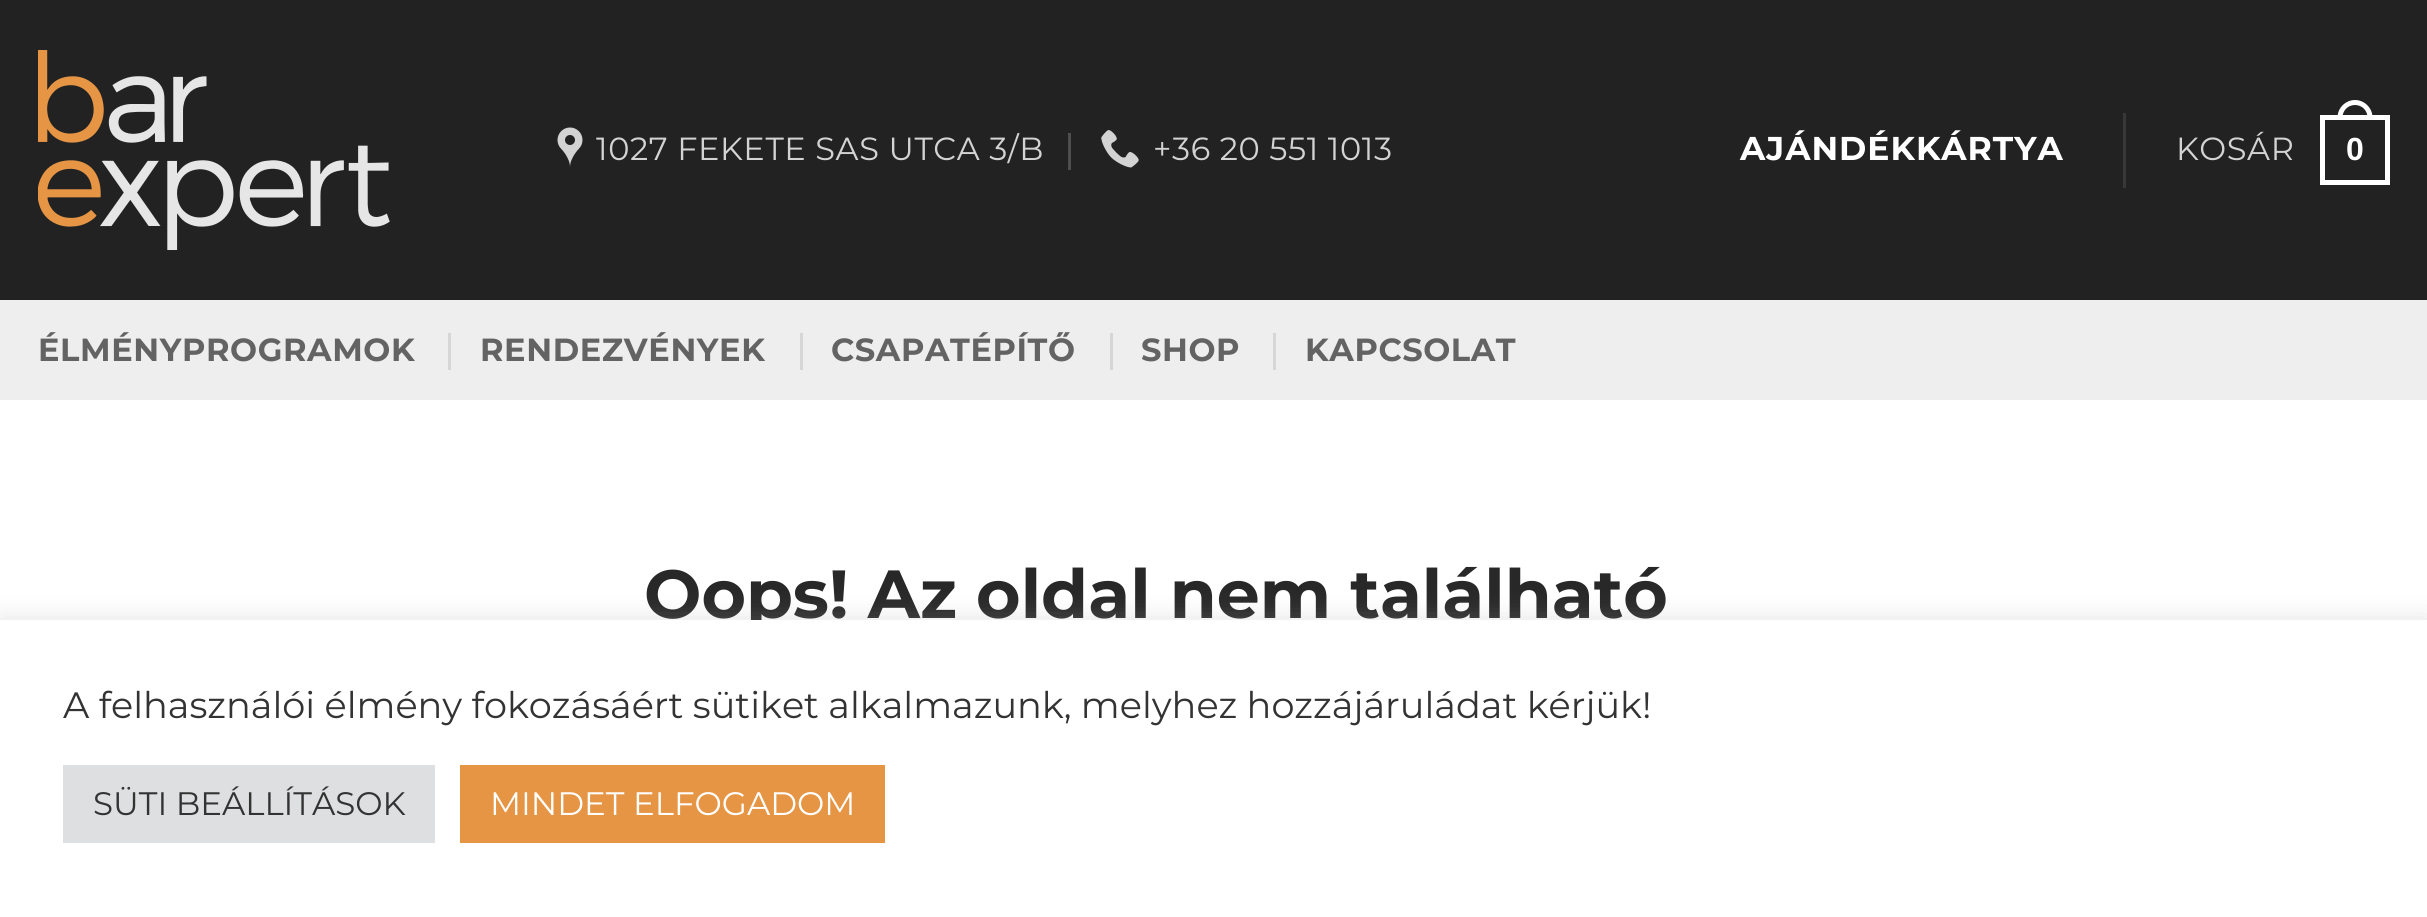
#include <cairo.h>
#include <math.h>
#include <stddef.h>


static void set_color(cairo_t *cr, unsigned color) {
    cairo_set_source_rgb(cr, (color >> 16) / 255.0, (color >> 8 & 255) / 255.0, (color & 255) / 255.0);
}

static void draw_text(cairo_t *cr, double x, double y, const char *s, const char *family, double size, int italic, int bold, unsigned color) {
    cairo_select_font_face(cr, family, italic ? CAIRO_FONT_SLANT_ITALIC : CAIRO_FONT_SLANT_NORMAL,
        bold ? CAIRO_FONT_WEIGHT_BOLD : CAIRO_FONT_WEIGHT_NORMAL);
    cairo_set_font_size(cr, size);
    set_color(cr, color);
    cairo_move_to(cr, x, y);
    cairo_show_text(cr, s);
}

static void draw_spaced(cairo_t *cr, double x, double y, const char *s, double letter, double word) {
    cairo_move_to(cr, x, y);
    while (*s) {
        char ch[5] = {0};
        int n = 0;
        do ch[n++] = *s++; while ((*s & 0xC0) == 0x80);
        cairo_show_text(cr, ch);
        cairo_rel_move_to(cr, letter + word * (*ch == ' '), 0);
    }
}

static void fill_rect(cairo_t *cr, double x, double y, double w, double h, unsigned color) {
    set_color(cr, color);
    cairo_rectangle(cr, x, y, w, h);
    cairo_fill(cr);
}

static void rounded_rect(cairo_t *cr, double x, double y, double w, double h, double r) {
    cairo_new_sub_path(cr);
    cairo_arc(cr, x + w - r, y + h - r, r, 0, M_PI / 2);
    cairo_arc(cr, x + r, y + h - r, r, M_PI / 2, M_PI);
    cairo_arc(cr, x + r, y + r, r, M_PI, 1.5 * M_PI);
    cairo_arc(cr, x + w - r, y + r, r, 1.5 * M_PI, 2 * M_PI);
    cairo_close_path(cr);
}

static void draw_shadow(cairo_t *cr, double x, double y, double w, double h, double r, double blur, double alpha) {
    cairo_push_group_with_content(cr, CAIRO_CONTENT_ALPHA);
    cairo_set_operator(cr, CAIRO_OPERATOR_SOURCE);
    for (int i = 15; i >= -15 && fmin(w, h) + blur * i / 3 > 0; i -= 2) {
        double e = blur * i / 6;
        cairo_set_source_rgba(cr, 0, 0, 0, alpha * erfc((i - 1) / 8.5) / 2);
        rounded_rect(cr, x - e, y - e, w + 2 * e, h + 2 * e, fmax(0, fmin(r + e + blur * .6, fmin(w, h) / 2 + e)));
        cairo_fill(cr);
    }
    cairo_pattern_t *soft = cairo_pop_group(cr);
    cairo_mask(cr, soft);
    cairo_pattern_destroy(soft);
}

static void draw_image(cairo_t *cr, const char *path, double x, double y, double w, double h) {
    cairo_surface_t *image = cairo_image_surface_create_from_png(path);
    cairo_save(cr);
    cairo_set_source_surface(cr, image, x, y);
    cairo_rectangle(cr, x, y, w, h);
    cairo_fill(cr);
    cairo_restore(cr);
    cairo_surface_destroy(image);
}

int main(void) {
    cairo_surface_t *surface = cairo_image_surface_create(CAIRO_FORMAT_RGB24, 2427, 917);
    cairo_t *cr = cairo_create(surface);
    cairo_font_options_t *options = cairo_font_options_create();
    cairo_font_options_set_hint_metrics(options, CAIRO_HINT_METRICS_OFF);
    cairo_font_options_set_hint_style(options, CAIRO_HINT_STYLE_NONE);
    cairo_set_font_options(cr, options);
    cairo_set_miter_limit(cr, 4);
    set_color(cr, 0xFFFFFF);
    cairo_paint(cr);
    fill_rect(cr, 0, 0, 2427, 300, 0x222222);
    draw_image(cr, "assets/img1.png", 38, 50, 352, 200);
    draw_image(cr, "assets/img2.png", 557, 127, 26, 40);
    cairo_select_font_face(cr, "Montserrat", CAIRO_FONT_SLANT_NORMAL, CAIRO_FONT_WEIGHT_NORMAL);
    cairo_set_font_size(cr, 32);
    set_color(cr, 0xD3D3D3);
    draw_spaced(cr, 596, 160, "1027 FEKETE SAS UTCA 3/B", 0.6, 0);
    fill_rect(cr, 1068, 133, 3, 37, 0x4E4E4E);
    draw_image(cr, "assets/img3.png", 1101, 130, 38, 38);
    set_color(cr, 0xD3D3D3);
    draw_spaced(cr, 1153, 160, "+36 20 551 1013", 0.6, 0);
    cairo_select_font_face(cr, "Montserrat", CAIRO_FONT_SLANT_NORMAL, CAIRO_FONT_WEIGHT_BOLD);
    cairo_set_font_size(cr, 33);
    set_color(cr, 0xFFFFFF);
    draw_spaced(cr, 1740, 160, "AJÁNDÉKKÁRTYA", 1, 0);
    fill_rect(cr, 2123, 113, 3, 75, 0x383838);
    cairo_select_font_face(cr, "Montserrat", CAIRO_FONT_SLANT_NORMAL, CAIRO_FONT_WEIGHT_NORMAL);
    cairo_set_font_size(cr, 32);
    set_color(cr, 0xD3D3D3);
    draw_spaced(cr, 2176, 160, "KOSÁR", 0.6, 0);
    cairo_rectangle(cr, 2322.5, 117.5, 65, 65);
    set_color(cr, 0xFFFFFF);
    cairo_set_line_width(cr, 5);
    cairo_stroke(cr);
    cairo_set_fill_rule(cr, CAIRO_FILL_RULE_EVEN_ODD);
    cairo_new_path(cr);
    cairo_move_to(cr, 2355, 100);
    cairo_curve_to(cr, 2364.5, 100, 2372.5, 108, 2372.5, 117.5);
    cairo_line_to(cr, 2372.5, 120);
    cairo_line_to(cr, 2337.5, 120);
    cairo_line_to(cr, 2337.5, 117.5);
    cairo_curve_to(cr, 2337.5, 108, 2345.5, 100, 2355, 100);
    cairo_close_path(cr);
    cairo_move_to(cr, 2355, 105);
    cairo_curve_to(cr, 2362, 105, 2367.5, 110.5, 2367.5, 117.5);
    cairo_line_to(cr, 2367.5, 120);
    cairo_line_to(cr, 2342.5, 120);
    cairo_line_to(cr, 2342.5, 117.5);
    cairo_curve_to(cr, 2342.5, 110.5, 2348, 105, 2355, 105);
    cairo_close_path(cr);
    cairo_fill(cr);
    cairo_select_font_face(cr, "Liberation Sans", CAIRO_FONT_SLANT_NORMAL, CAIRO_FONT_WEIGHT_BOLD);
    draw_spaced(cr, 2346, 160, "0", 0.6, 0);
    fill_rect(cr, 0, 300, 2427, 100, 0xEEEEEE);
    cairo_select_font_face(cr, "Montserrat", CAIRO_FONT_SLANT_NORMAL, CAIRO_FONT_WEIGHT_BOLD);
    set_color(cr, 0x636363);
    draw_spaced(cr, 38, 361, "ÉLMÉNYPROGRAMOK", 0.6, 0);
    fill_rect(cr, 448, 333, 3, 37, 0xD6D6D6);
    set_color(cr, 0x636363);
    draw_spaced(cr, 480, 361, "RENDEZVÉNYEK", 0.6, 0);
    fill_rect(cr, 800, 333, 3, 37, 0xD6D6D6);
    set_color(cr, 0x636363);
    draw_spaced(cr, 831, 361, "CSAPATÉPÍTŐ", 0.6, 0);
    fill_rect(cr, 1110, 333, 3, 37, 0xD6D6D6);
    set_color(cr, 0x636363);
    draw_spaced(cr, 1141, 361, "SHOP", 0.6, 0);
    fill_rect(cr, 1273, 333, 3, 37, 0xD6D6D6);
    set_color(cr, 0x636363);
    draw_spaced(cr, 1305, 361, "KAPCSOLAT", 0.6, 0);
    draw_text(cr, 644, 618, "Oops! Az oldal nem található", "Montserrat", 68, 0, 1, 0x282828);
    set_color(cr, 0xACABAB);
    draw_shadow(cr, 0, 618, 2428, 297, 0, 12.5, 0.3);
    fill_rect(cr, 0, 620, 2427, 297, 0xFFFFFF);
    cairo_select_font_face(cr, "Montserrat", CAIRO_FONT_SLANT_NORMAL, CAIRO_FONT_WEIGHT_NORMAL);
    cairo_set_font_size(cr, 36.65);
    set_color(cr, 0x333333);
    draw_spaced(cr, 63, 718, "A felhasználói élmény fokozásáért sütiket alkalmazunk, melyhez hozzájáruládat kérjük!", 0, -0.25);
    fill_rect(cr, 63, 765, 372, 78, 0xDEDFE0);
    draw_text(cr, 93, 815, "SÜTI BEÁLLÍTÁSOK", "Montserrat", 32.5, 0, 0, 0x333333);
    fill_rect(cr, 460, 765, 425, 78, 0xE69545);
    draw_text(cr, 490, 815, "MINDET ELFOGADOM", "Montserrat", 32.5, 0, 0, 0xFFFFFF);
    cairo_surface_write_to_png(surface, "output.png");
    cairo_font_options_destroy(options);
    cairo_destroy(cr);
    cairo_surface_destroy(surface);
    return 0;
}
